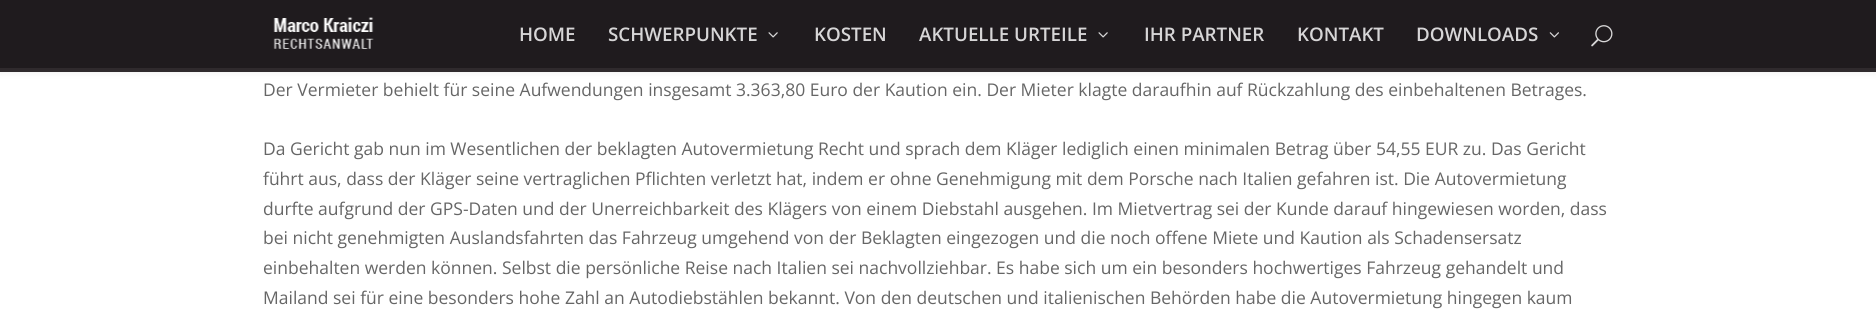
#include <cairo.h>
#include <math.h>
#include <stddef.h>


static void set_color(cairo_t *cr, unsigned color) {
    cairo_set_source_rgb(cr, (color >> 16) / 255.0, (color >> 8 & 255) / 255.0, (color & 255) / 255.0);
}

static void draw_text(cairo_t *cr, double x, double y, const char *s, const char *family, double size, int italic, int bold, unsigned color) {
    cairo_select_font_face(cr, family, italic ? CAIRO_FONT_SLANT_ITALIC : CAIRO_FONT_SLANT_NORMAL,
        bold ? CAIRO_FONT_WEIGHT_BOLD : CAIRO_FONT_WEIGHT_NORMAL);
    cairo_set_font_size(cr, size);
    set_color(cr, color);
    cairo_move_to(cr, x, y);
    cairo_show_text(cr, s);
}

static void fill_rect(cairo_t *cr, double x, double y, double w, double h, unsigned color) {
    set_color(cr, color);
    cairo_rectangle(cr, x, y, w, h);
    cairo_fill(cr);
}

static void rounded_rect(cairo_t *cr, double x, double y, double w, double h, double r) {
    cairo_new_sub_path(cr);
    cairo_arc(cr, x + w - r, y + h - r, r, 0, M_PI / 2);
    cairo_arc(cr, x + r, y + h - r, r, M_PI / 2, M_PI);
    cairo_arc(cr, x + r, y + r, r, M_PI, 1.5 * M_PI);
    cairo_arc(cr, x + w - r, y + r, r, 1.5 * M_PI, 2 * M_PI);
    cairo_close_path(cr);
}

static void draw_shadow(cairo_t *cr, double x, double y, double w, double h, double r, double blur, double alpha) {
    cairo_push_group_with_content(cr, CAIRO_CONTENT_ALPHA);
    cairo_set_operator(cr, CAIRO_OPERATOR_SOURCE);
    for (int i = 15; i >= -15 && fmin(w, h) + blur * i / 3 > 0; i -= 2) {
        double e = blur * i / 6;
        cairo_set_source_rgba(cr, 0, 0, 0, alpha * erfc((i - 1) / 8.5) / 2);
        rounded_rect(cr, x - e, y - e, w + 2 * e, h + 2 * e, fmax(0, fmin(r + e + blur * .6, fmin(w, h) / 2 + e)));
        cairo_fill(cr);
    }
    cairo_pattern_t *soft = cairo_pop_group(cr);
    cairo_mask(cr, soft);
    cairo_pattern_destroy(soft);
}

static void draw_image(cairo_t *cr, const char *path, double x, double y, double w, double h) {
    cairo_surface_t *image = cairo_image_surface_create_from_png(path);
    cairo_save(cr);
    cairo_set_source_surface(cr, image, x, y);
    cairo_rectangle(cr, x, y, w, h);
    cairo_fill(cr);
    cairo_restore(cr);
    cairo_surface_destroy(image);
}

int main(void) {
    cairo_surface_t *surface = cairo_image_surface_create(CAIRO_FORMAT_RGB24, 1876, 309);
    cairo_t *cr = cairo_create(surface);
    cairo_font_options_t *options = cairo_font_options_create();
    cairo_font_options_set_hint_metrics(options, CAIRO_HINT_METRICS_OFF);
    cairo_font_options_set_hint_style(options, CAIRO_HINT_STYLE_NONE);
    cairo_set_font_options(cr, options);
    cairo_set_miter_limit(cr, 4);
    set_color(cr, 0xFFFFFF);
    cairo_paint(cr);
    set_color(cr, 0x000000);
    draw_shadow(cr, 0, 0, 1876, 71, 0, 4.5, 0.1);
    fill_rect(cr, 0, 0, 1876, 68, 0x1F1B1E);
    fill_rect(cr, 0, 68, 1876, 4, 0x2F2A2D);
    draw_image(cr, "assets/img1.png", 273, 17, 101, 32);
    draw_text(cr, 519, 41, "HOME", "Open Sans SemiBold", 18.75, 0, 0, 0xD7D6D7);
    draw_text(cr, 608, 41, "SCHWERPUNKTE", "Open Sans SemiBold", 18.75, 0, 0, 0xD7D6D7);
    draw_image(cr, "assets/img2.png", 768, 32, 10, 6);
    draw_text(cr, 814, 41, "KOSTEN", "Open Sans SemiBold", 18.75, 0, 0, 0xD7D6D7);
    draw_text(cr, 919, 41, "AKTUELLE URTEILE", "Open Sans SemiBold", 18.75, 0, 0, 0xD7D6D7);
    draw_image(cr, "assets/img2.png", 1098, 32, 10, 6);
    draw_text(cr, 1144, 41, "IHR PARTNER", "Open Sans SemiBold", 18.75, 0, 0, 0xD7D6D7);
    draw_text(cr, 1297, 41, "KONTAKT", "Open Sans SemiBold", 18.75, 0, 0, 0xD7D6D7);
    draw_text(cr, 1416, 41, "DOWNLOADS", "Open Sans SemiBold", 18.75, 0, 0, 0xD7D6D7);
    draw_image(cr, "assets/img3.png", 1549, 32, 10, 6);
    draw_image(cr, "assets/img4.png", 1591, 25, 22, 22);
    draw_text(cr, 263, 96, "Der Vermieter behielt für seine Aufwendungen insgesamt 3.363,80 Euro der Kaution ein. Der Mieter klagte daraufhin auf Rückzahlung des einbehaltenen Betrages.", "Open Sans", 17.5, 0, 0, 0x666666);
    draw_text(cr, 263, 155, "Da Gericht gab nun im Wesentlichen der beklagten Autovermietung Recht und sprach dem Kläger lediglich einen minimalen Betrag über 54,55 EUR zu. Das Gericht", "Open Sans", 17.5, 0, 0, 0x666666);
    draw_text(cr, 263, 185, "führt aus, dass der Kläger seine vertraglichen Pflichten verletzt hat, indem er ohne Genehmigung mit dem Porsche nach Italien gefahren ist. Die Autovermietung", "Open Sans", 17.5, 0, 0, 0x666666);
    draw_text(cr, 263, 215, "durfte aufgrund der GPS-Daten und der Unerreichbarkeit des Klägers von einem Diebstahl ausgehen. Im Mietvertrag sei der Kunde darauf hingewiesen worden, dass", "Open Sans", 17.5, 0, 0, 0x666666);
    draw_text(cr, 263, 244, "bei nicht genehmigten Auslandsfahrten das Fahrzeug umgehend von der Beklagten eingezogen und die noch offene Miete und Kaution als Schadensersatz", "Open Sans", 17.5, 0, 0, 0x666666);
    draw_text(cr, 263, 274, "einbehalten werden können. Selbst die persönliche Reise nach Italien sei nachvollziehbar. Es habe sich um ein besonders hochwertiges Fahrzeug gehandelt und", "Open Sans", 17.5, 0, 0, 0x666666);
    draw_text(cr, 263, 304, "Mailand sei für eine besonders hohe Zahl an Autodiebstählen bekannt. Von den deutschen und italienischen Behörden habe die Autovermietung hingegen kaum", "Open Sans", 17.5, 0, 0, 0x666666);
    cairo_surface_write_to_png(surface, "output.png");
    cairo_font_options_destroy(options);
    cairo_destroy(cr);
    cairo_surface_destroy(surface);
    return 0;
}
